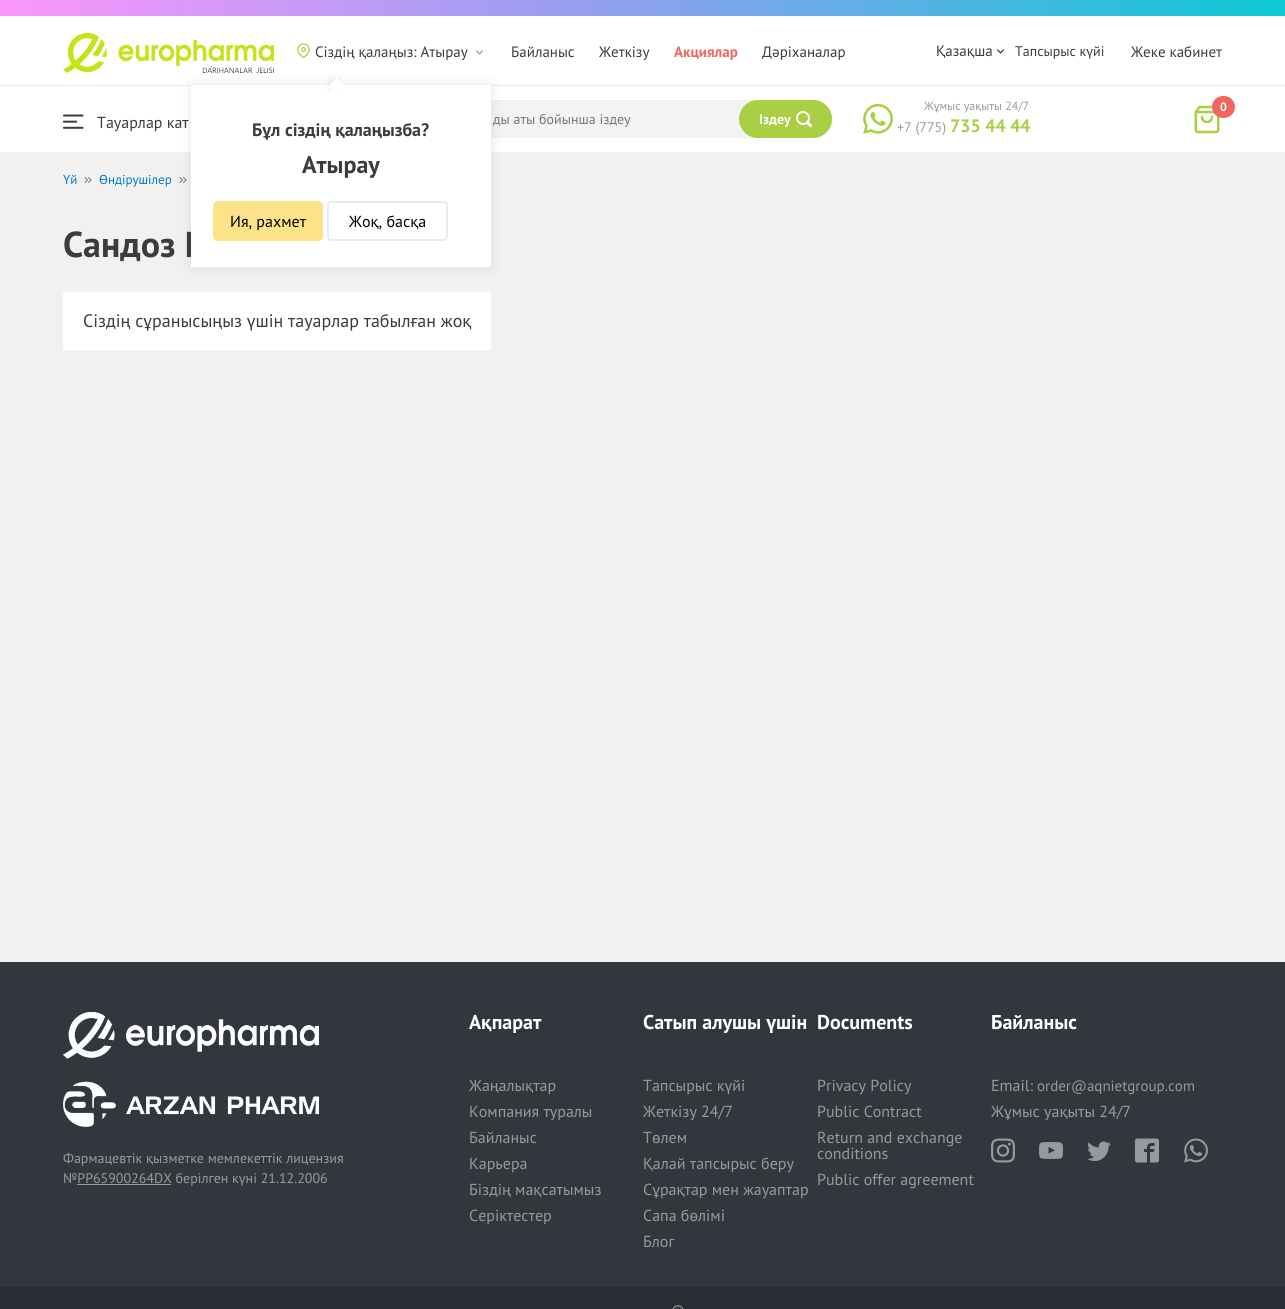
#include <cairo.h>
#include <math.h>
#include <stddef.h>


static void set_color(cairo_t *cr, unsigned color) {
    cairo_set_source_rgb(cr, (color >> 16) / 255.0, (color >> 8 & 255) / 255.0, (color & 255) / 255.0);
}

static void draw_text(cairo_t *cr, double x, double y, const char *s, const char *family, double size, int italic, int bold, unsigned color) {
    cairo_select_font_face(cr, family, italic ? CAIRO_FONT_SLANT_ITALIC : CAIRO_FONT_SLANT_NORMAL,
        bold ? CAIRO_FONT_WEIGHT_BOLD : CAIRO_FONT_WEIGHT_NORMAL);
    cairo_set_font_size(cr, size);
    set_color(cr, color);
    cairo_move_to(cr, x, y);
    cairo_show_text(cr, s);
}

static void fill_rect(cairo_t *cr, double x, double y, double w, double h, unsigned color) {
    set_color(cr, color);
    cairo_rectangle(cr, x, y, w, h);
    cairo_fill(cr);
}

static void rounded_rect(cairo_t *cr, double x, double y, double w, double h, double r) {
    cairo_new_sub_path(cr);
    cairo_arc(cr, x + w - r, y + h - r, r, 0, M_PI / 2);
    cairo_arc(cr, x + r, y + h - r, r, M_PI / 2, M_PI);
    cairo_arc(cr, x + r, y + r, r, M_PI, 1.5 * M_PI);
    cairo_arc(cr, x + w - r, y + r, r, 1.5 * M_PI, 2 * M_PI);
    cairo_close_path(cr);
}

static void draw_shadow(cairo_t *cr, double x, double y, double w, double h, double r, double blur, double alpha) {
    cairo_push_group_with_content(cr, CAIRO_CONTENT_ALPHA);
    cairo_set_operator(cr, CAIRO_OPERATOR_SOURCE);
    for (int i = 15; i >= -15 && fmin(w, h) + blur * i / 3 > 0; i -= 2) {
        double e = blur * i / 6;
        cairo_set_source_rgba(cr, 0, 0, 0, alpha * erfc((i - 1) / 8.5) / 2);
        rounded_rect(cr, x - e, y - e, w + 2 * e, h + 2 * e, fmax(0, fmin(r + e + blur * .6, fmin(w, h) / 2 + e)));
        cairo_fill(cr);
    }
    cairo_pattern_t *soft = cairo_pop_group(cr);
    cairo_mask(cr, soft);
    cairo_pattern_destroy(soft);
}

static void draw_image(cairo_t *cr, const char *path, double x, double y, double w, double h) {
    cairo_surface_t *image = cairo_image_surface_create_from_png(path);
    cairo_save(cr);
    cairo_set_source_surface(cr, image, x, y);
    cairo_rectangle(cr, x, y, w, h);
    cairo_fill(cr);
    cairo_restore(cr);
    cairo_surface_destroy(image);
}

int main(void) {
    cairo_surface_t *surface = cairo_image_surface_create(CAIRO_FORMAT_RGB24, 1285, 1309);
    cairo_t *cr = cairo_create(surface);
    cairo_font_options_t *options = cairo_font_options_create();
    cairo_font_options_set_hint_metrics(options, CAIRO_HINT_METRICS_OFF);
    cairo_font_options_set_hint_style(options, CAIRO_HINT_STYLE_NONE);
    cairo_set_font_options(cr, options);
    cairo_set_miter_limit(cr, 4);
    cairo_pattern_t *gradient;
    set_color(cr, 0xF1F1F1);
    cairo_paint(cr);
    gradient = cairo_pattern_create_linear(0, -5.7, 1285, -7.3);
    cairo_pattern_add_color_stop_rgba(gradient, 0, 0.988, 0.588, 0.988, 1);
    cairo_pattern_add_color_stop_rgba(gradient, 0.46, 0.584, 0.62, 0.945, 1);
    cairo_pattern_add_color_stop_rgba(gradient, 1, 0.051, 0.788, 0.835, 1);
    cairo_set_source(cr, gradient);
    cairo_pattern_destroy(gradient);
    cairo_rectangle(cr, 0, 0, 1285, 16);
    cairo_fill(cr);
    fill_rect(cr, 0, 16, 1285, 136, 0xFFFFFF);
    fill_rect(cr, 0, 85, 1285, 1, 0xEBEBEB);
    draw_image(cr, "assets/img1.png", 63, 33, 211, 40);
    draw_image(cr, "assets/img2.png", 297, 43, 13, 16);
    draw_text(cr, 315, 57, "Сіздің қалаңыз: Атырау", "PT Sans", 15, 0, 0, 0x3C3C3C);
    draw_image(cr, "assets/img3.png", 476, 50, 7, 5);
    fill_rect(cr, 0, 152, 1285, 1, 0xF6F6F6);
    set_color(cr, 0xF1F3F4);
    rounded_rect(cr, 292.5, 100.5, 539, 37, 18.5);
    cairo_fill_preserve(cr);
    set_color(cr, 0xEEEEEE);
    cairo_set_line_width(cr, 1);
    cairo_stroke(cr);
    draw_image(cr, "assets/img9.png", 179, 177, 8, 6);
    set_color(cr, 0x000000);
    draw_shadow(cr, 191, 85, 300, 182, 0, 6, 0.1);
    draw_text(cr, 63, 257, "Сандоз Г", "PT Sans", 36, 0, 1, 0x3C3C3C);
    fill_rect(cr, 191, 85, 300, 182, 0xFFFFFF);
    set_color(cr, 0x000000);
    draw_shadow(cr, 329, 78, 12, 12, 0, 2.5, 0.06);
    set_color(cr, 0xFFFFFF);
    cairo_new_path(cr);
    cairo_move_to(cr, 337, 77.5);
    cairo_line_to(cr, 345, 86);
    cairo_line_to(cr, 337, 94.5);
    cairo_line_to(cr, 328.5, 86);
    cairo_close_path(cr);
    cairo_fill(cr);
    draw_text(cr, 252, 136, "Бұл сіздің қалаңызба?", "PT Sans", 18, 0, 1, 0x3C3C3C);
    draw_text(cr, 302, 173, "Атырау", "PT Sans", 24, 0, 1, 0x3C3C3C);
    set_color(cr, 0xFCE389);
    rounded_rect(cr, 214, 202, 108, 38, 4);
    cairo_fill_preserve(cr);
    cairo_set_line_width(cr, 2);
    cairo_stroke(cr);
    draw_text(cr, 230, 227, "Ия, рахмет", "PT Sans", 16, 0, 0, 0x000000);
    rounded_rect(cr, 328, 202, 119, 38, 3);
    set_color(cr, 0xEBEBEB);
    cairo_stroke(cr);
    draw_text(cr, 349, 227, "Жоқ, басқа", "PT Sans", 16, 0, 0, 0x000000);
    draw_text(cr, 511, 57, "Байланыс", "PT Sans", 15, 0, 0, 0x3C3C3C);
    draw_text(cr, 599, 57, "Жеткізу", "PT Sans", 15, 0, 0, 0x3C3C3C);
    draw_text(cr, 674, 57, "Акциялар", "PT Sans", 15, 0, 1, 0xF1675E);
    draw_text(cr, 762, 57, "Дәріханалар", "PT Sans", 15, 0, 0, 0x3C3C3C);
    draw_text(cr, 936, 56, "Қазақша", "PT Sans", 15, 0, 0, 0x3C3C3C);
    draw_image(cr, "assets/img4.png", 996, 49, 9, 5);
    draw_text(cr, 1015, 56, "Тапсырыс күйі", "PT Sans", 14, 0, 0, 0x3C3C3C);
    draw_text(cr, 1131, 57, "Жеке кабинет", "PT Sans", 15, 0, 0, 0x3C3C3C);
    draw_image(cr, "assets/img5.png", 863, 103, 30, 31);
    draw_text(cr, 924, 110, "Жұмыс уақыты 24/7", "PT Sans", 12, 0, 0, 0x979A9D);
    draw_text(cr, 897, 132, "+7 (775)", "PT Sans", 14, 0, 0, 0x979A9D);
    draw_text(cr, 950, 132, "735 44 44", "PT Sans", 18, 0, 1, 0xA9CF44);
    draw_image(cr, "assets/img6.png", 1194, 105, 26, 29);
    set_color(cr, 0xF1665E);
    rounded_rect(cr, 1212, 96, 23, 22, 11);
    cairo_fill(cr);
    draw_text(cr, 1220, 111, "0", "PT Sans", 12, 0, 1, 0xFFFFFF);
    draw_image(cr, "assets/img7.png", 62, 114, 22, 15);
    draw_text(cr, 97, 128, "Тауарлар кат", "PT Sans", 16, 0, 0, 0x3C3C3C);
    draw_text(cr, 493, 124, "ды аты бойынша іздеу", "PT Sans", 14, 0, 0, 0x757575);
    set_color(cr, 0xA9CF44);
    rounded_rect(cr, 739, 100, 93, 38, 19);
    cairo_fill(cr);
    draw_text(cr, 759, 124, "Іздеу", "PT Sans", 14, 0, 1, 0xFFFFFF);
    draw_image(cr, "assets/img8.png", 796, 111, 16, 16);
    draw_text(cr, 63, 184, "Үй", "PT Sans", 13, 0, 0, 0x0077CC);
    draw_image(cr, "assets/img9.png", 84, 177, 8, 6);
    draw_text(cr, 99, 184, "Өндірушілер", "PT Sans", 13, 0, 0, 0x0077CC);
    fill_rect(cr, 63, 292, 428, 58, 0xFFFFFF);
    draw_text(cr, 83, 327, "Сіздің сұранысыңыз үшін тауарлар табылған жоқ", "PT Sans", 18, 0, 0, 0x3C3C3C);
    fill_rect(cr, 0, 962, 1285, 325, 0x31373C);
    draw_text(cr, 469, 1029, "Ақпарат", "PT Sans", 20, 0, 1, 0xFFFFFF);
    draw_text(cr, 469, 1091, "Жаңалықтар", "PT Sans", 16, 0, 0, 0x979A9D);
    draw_text(cr, 469, 1117, "Компания туралы", "PT Sans", 16, 0, 0, 0x979A9D);
    draw_text(cr, 469, 1143, "Байланыс", "PT Sans", 16, 0, 0, 0x979A9D);
    draw_text(cr, 469, 1169, "Карьера", "PT Sans", 16, 0, 0, 0x979A9D);
    draw_text(cr, 469, 1195, "Біздің мақсатымыз", "PT Sans", 16, 0, 0, 0x979A9D);
    draw_text(cr, 469, 1221, "Серіктестер", "PT Sans", 16, 0, 0, 0x979A9D);
    draw_text(cr, 643, 1029, "Сатып алушы үшін", "PT Sans", 20, 0, 1, 0xFFFFFF);
    draw_text(cr, 643, 1091, "Тапсырыс күйі", "PT Sans", 16, 0, 0, 0x979A9D);
    draw_text(cr, 643, 1117, "Жеткізу 24/7", "PT Sans", 16, 0, 0, 0x979A9D);
    draw_text(cr, 643, 1143, "Төлем", "PT Sans", 16, 0, 0, 0x979A9D);
    draw_text(cr, 643, 1169, "Қалай тапсырыс беру", "PT Sans", 16, 0, 0, 0x979A9D);
    draw_text(cr, 643, 1195, "Сұрақтар мен жауаптар", "PT Sans", 16, 0, 0, 0x979A9D);
    draw_text(cr, 643, 1221, "Сапа бөлімі", "PT Sans", 16, 0, 0, 0x979A9D);
    draw_text(cr, 643, 1247, "Блог", "PT Sans", 16, 0, 0, 0x979A9D);
    draw_text(cr, 817, 1029, "Documents", "PT Sans", 20, 0, 1, 0xFFFFFF);
    draw_text(cr, 817, 1091, "Privacy Policy", "PT Sans", 16, 0, 0, 0x979A9D);
    draw_text(cr, 817, 1117, "Public Contract", "PT Sans", 16, 0, 0, 0x979A9D);
    draw_text(cr, 817, 1143, "Return and exchange", "PT Sans", 16, 0, 0, 0x979A9D);
    draw_text(cr, 817, 1159, "conditions", "PT Sans", 16, 0, 0, 0x979A9D);
    draw_text(cr, 817, 1185, "Public offer agreement", "PT Sans", 16, 0, 0, 0x979A9D);
    draw_text(cr, 991, 1029, "Байланыс", "PT Sans", 20, 0, 1, 0xFFFFFF);
    draw_text(cr, 991, 1091, "Email:", "PT Sans", 16, 0, 0, 0x979A9D);
    draw_text(cr, 1037, 1091, "order@aqnietgroup.com", "PT Sans", 15, 0, 0, 0x979A9D);
    draw_text(cr, 991, 1117, "Жұмыс уақыты 24/7", "PT Sans", 16, 0, 0, 0x979A9D);
    draw_image(cr, "assets/img10.png", 991, 1138, 24, 25);
    draw_image(cr, "assets/img11.png", 1039, 1142, 24, 17);
    draw_image(cr, "assets/img12.png", 1087, 1141, 24, 20);
    draw_image(cr, "assets/img13.png", 1135, 1138, 24, 25);
    draw_image(cr, "assets/img14.png", 1184, 1138, 24, 25);
    draw_image(cr, "assets/img15.png", 63, 1012, 256, 115);
    draw_text(cr, 63, 1163, "Фармацевтік қызметке мемлекеттік лицензия", "PT Sans", 14, 0, 0, 0x979A9D);
    draw_text(cr, 63, 1183, "№PP65900264DX берілген күні 21.12.2006", "PT Sans", 14, 0, 0, 0x979A9D);
    fill_rect(cr, 77, 1184, 94, 1, 0x979A9D);
    fill_rect(cr, 0, 1287, 1285, 22, 0x282D33);
    draw_image(cr, "assets/img16.png", 672, 1305, 12, 4);
    cairo_surface_write_to_png(surface, "output.png");
    cairo_font_options_destroy(options);
    cairo_destroy(cr);
    cairo_surface_destroy(surface);
    return 0;
}
